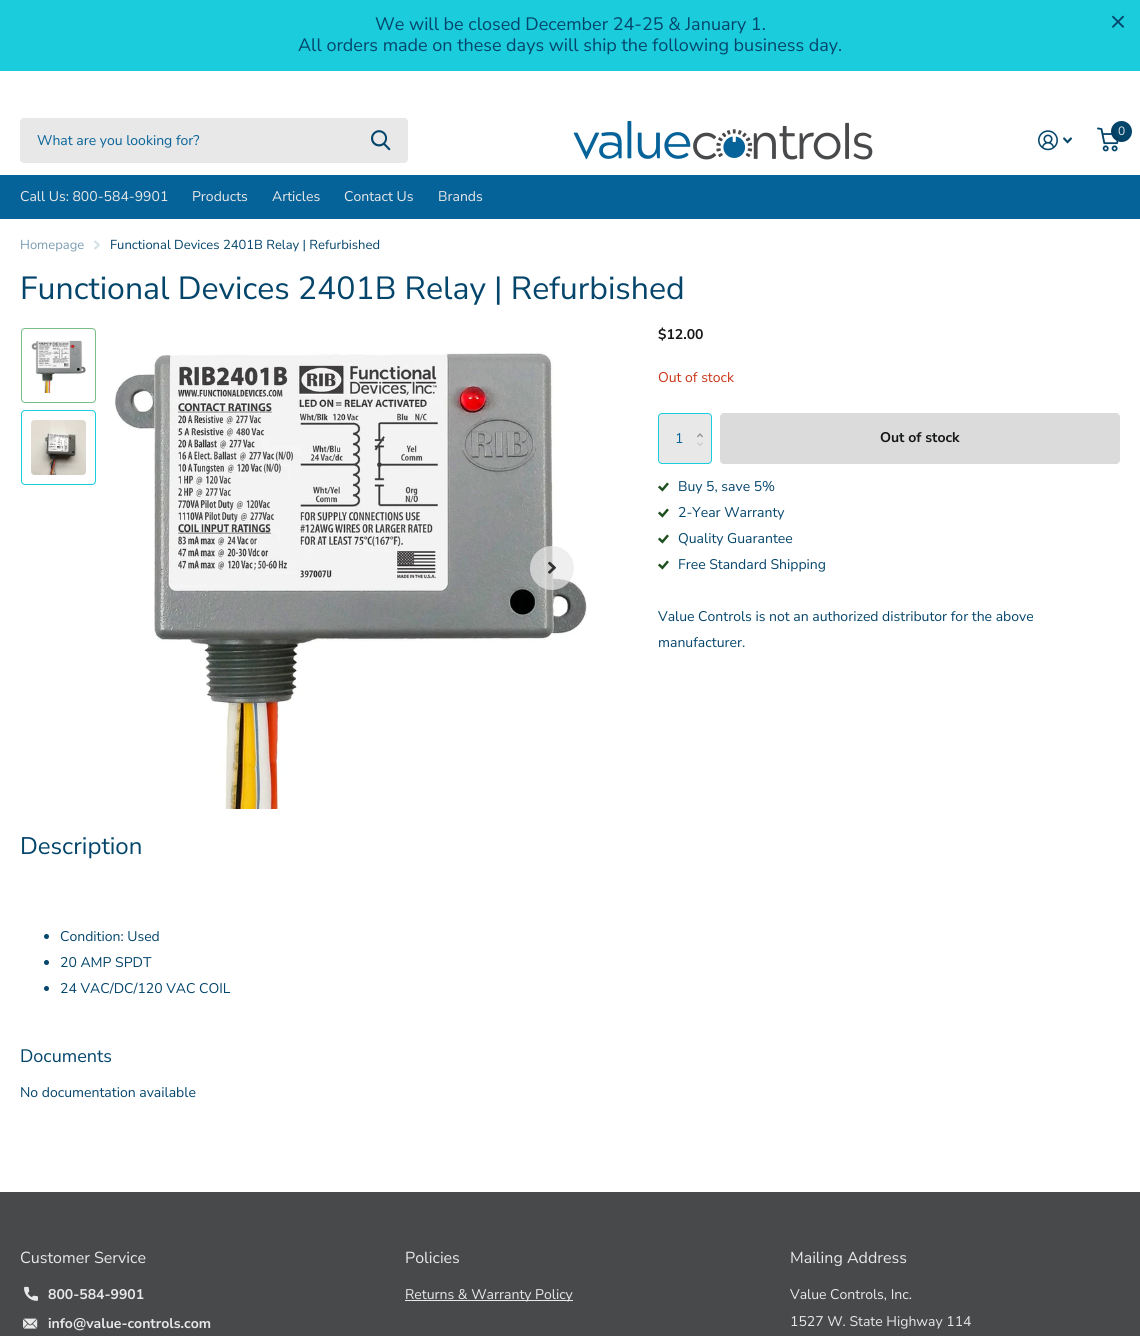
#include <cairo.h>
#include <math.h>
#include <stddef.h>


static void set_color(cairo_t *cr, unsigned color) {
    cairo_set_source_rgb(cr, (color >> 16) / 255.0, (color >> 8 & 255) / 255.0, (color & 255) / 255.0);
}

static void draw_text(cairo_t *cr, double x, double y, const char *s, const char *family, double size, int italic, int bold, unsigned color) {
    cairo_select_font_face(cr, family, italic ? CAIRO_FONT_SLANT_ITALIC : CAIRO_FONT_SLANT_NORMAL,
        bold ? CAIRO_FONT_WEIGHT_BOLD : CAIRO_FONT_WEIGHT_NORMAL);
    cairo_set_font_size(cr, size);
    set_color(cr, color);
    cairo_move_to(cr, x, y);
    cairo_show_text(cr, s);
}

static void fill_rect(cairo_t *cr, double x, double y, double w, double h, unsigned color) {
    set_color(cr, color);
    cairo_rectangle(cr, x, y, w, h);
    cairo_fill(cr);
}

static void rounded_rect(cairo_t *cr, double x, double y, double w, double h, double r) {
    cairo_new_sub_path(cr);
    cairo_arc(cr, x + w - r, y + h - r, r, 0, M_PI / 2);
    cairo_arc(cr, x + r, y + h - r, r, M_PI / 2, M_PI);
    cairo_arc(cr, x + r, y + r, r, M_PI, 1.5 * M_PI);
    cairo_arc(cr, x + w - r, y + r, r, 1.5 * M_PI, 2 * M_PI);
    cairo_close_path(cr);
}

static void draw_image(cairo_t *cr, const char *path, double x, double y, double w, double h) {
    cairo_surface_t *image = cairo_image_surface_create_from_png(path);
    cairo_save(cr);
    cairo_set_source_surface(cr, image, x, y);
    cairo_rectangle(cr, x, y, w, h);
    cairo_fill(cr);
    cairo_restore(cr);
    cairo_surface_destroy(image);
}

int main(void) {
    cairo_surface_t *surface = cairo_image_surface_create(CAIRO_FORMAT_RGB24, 1140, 1336);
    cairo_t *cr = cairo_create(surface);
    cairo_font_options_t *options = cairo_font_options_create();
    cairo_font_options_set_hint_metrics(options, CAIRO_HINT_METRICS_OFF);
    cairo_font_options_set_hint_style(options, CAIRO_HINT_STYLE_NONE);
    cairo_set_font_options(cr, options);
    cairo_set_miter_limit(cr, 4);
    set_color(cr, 0x1ACCDC);
    cairo_paint(cr);
    draw_text(cr, 375, 30, "We will be closed December 24-25 & January 1.", "Nunito Sans", 18, 0, 0, 0x04456B);
    draw_text(cr, 298, 51, "All orders made on these days will ship the following business day.", "Nunito Sans", 18, 0, 0, 0x04456B);
    draw_image(cr, "assets/img1.png", 1112, 15, 13, 13);
    fill_rect(cr, 0, 71, 1140, 1121, 0xFFFFFF);
    draw_image(cr, "assets/img2.png", 1038, 130, 20, 21);
    draw_image(cr, "assets/img3.png", 1063, 137, 9, 7);
    draw_image(cr, "assets/img4.png", 1097, 127, 22, 25);
    set_color(cr, 0x04456B);
    cairo_arc(cr, 1121.5, 131.5, 10.5, 0, 2 * M_PI);
    cairo_fill(cr);
    cairo_set_source_rgba(cr, 0, 0, 0, 0.1);
    cairo_new_path(cr);
    cairo_move_to(cr, 1129.5, 138.5);
    cairo_curve_to(cr, 1120, 144.5, 1108.5, 132, 1116, 122.5);
    cairo_curve_to(cr, 1110.5, 126.5, 1109.5, 134, 1114, 139);
    cairo_curve_to(cr, 1118.5, 143, 1125.5, 143, 1129.5, 138.5);
    cairo_close_path(cr);
    cairo_fill(cr);
    draw_text(cr, 1118, 135, "0", "Nunito Sans", 12, 0, 0, 0xE8E8E8);
    rounded_rect(cr, 20, 118, 388, 45, 4);
    cairo_fill(cr);
    draw_text(cr, 37, 145, "What are you looking for?", "Nunito Sans", 14, 0, 0, 0x066399);
    draw_image(cr, "assets/img5.png", 371, 130, 20, 21);
    draw_image(cr, "assets/img6.png", 573, 121, 300, 39);
    fill_rect(cr, 0, 175, 1140, 44, 0x066399);
    draw_text(cr, 20, 201, "Call Us: 800-584-9901", "Nunito Sans", 14, 0, 0, 0xE8E8E8);
    draw_text(cr, 192, 201, "Products", "Nunito Sans", 14, 0, 0, 0xE8E8E8);
    draw_text(cr, 272, 201, "Articles", "Nunito Sans", 14, 0, 0, 0xE8E8E8);
    draw_text(cr, 344, 201, "Contact Us", "Nunito Sans", 14, 0, 0, 0xE8E8E8);
    draw_text(cr, 438, 201, "Brands", "Nunito Sans", 14, 0, 0, 0xE8E8E8);
    draw_text(cr, 20, 249, "Homepage", "Nunito Sans", 13, 0, 0, 0x7A9CB1);
    draw_image(cr, "assets/img7.png", 94, 240, 6, 10);
    draw_text(cr, 110, 249, "Functional Devices 2401B Relay | Refurbished", "Nunito Sans", 13, 0, 0, 0x04456B);
    draw_text(cr, 20, 299, "Functional Devices 2401B Relay | Refurbished", "Nunito Sans", 32, 0, 0, 0x04456B);
    draw_text(cr, 658, 339, "$12.00", "Nunito Sans", 14, 0, 1, 0x161718);
    draw_text(cr, 658, 382, "Out of stock", "Nunito Sans", 14, 0, 0, 0xCA3416);
    set_color(cr, 0xE8E8E8);
    rounded_rect(cr, 658.5, 413.5, 53, 50, 3.5);
    cairo_fill_preserve(cr);
    set_color(cr, 0x1ACCDC);
    cairo_set_line_width(cr, 1);
    cairo_stroke(cr);
    draw_text(cr, 675, 443, "1", "Nunito Sans", 14, 0, 0, 0x066399);
    draw_image(cr, "assets/img8.png", 697, 433, 6, 5);
    draw_image(cr, "assets/img9.png", 697, 442, 6, 4);
    set_color(cr, 0xDBDBDB);
    rounded_rect(cr, 720, 413, 400, 51, 4);
    cairo_fill(cr);
    draw_text(cr, 880, 442, "Out of stock", "Nunito Sans", 14, 0, 1, 0x161718);
    draw_image(cr, "assets/img10.png", 658, 482, 11, 10);
    draw_text(cr, 678, 491, "Buy 5, save 5%", "Nunito Sans", 14, 0, 0, 0x04456B);
    draw_image(cr, "assets/img10.png", 658, 508, 11, 10);
    draw_text(cr, 678, 517, "2-Year Warranty", "Nunito Sans", 14, 0, 0, 0x04456B);
    draw_image(cr, "assets/img10.png", 658, 534, 11, 10);
    draw_text(cr, 678, 543, "Quality Guarantee", "Nunito Sans", 14, 0, 0, 0x04456B);
    draw_image(cr, "assets/img10.png", 658, 560, 11, 10);
    draw_text(cr, 678, 569, "Free Standard Shipping", "Nunito Sans", 14, 0, 0, 0x04456B);
    draw_text(cr, 658, 621, "Value Controls is not an authorized distributor for the above", "Nunito Sans", 14, 0, 0, 0x04456B);
    draw_text(cr, 658, 647, "manufacturer.", "Nunito Sans", 14, 0, 0, 0x04456B);
    rounded_rect(cr, 21.5, 328.5, 74, 74, 3.5);
    set_color(cr, 0x79BD87);
    cairo_stroke(cr);
    draw_image(cr, "assets/img11.png", 31, 340, 55, 53);
    rounded_rect(cr, 21.5, 410.5, 74, 74, 3.5);
    set_color(cr, 0x1ACCDC);
    cairo_stroke(cr);
    draw_image(cr, "assets/img12.png", 31, 420, 55, 55);
    draw_image(cr, "assets/img14.png", 114, 352, 473, 457);
    cairo_set_source_rgba(cr, 0.91, 0.91, 0.91, 0.7);
    cairo_arc(cr, 552, 568, 22, 0, 2 * M_PI);
    cairo_fill(cr);
    draw_image(cr, "assets/img13.png", 548, 561, 8, 13);
    draw_text(cr, 20, 854, "Description", "Nunito Sans", 24, 0, 0, 0x04456B);
    cairo_new_path(cr);
    cairo_arc(cr, 46.5, 936.5, 2.5, 0, 2 * M_PI);
    cairo_fill(cr);
    draw_text(cr, 60, 941, "Condition: Used", "Nunito Sans", 14, 0, 0, 0x04456B);
    cairo_new_path(cr);
    cairo_arc(cr, 46.5, 962.5, 2.5, 0, 2 * M_PI);
    cairo_fill(cr);
    draw_text(cr, 60, 967, "20 AMP SPDT", "Nunito Sans", 14, 0, 0, 0x04456B);
    cairo_new_path(cr);
    cairo_arc(cr, 46.5, 988.5, 2.5, 0, 2 * M_PI);
    cairo_fill(cr);
    draw_text(cr, 60, 993, "24 VAC/DC/120 VAC COIL", "Nunito Sans", 14, 0, 0, 0x04456B);
    draw_text(cr, 20, 1062, "Documents", "Nunito Sans", 18, 0, 0, 0x04456B);
    draw_text(cr, 20, 1097, "No documentation available", "Nunito Sans", 14, 0, 0, 0x04456B);
    fill_rect(cr, 0, 1192, 1140, 144, 0x48494B);
    draw_text(cr, 20, 1263, "Customer Service", "Nunito Sans", 16, 0, 0, 0xE8E8E8);
    draw_image(cr, "assets/img15.png", 24, 1286, 14, 15);
    draw_text(cr, 48, 1299, "800-584-9901", "Nunito Sans", 14, 0, 1, 0xE8E8E8);
    draw_image(cr, "assets/img16.png", 23, 1318, 15, 11);
    draw_text(cr, 48, 1328, "info@value-controls.com", "Nunito Sans", 14, 0, 1, 0xE8E8E8);
    draw_text(cr, 405, 1263, "Policies", "Nunito Sans", 16, 0, 0, 0xE8E8E8);
    fill_rect(cr, 405, 1300, 168, 1, 0xE8E8E8);
    draw_text(cr, 405, 1299, "Returns & Warranty Policy", "Nunito Sans", 14, 0, 0, 0xE8E8E8);
    draw_text(cr, 790, 1263, "Mailing Address", "Nunito Sans", 16, 0, 0, 0xE8E8E8);
    draw_text(cr, 790, 1299, "Value Controls, Inc.", "Nunito Sans", 14, 0, 0, 0xE8E8E8);
    draw_text(cr, 790, 1326, "1527 W. State Highway 114", "Nunito Sans", 14, 0, 0, 0xE8E8E8);
    cairo_surface_write_to_png(surface, "output.png");
    cairo_font_options_destroy(options);
    cairo_destroy(cr);
    cairo_surface_destroy(surface);
    return 0;
}
